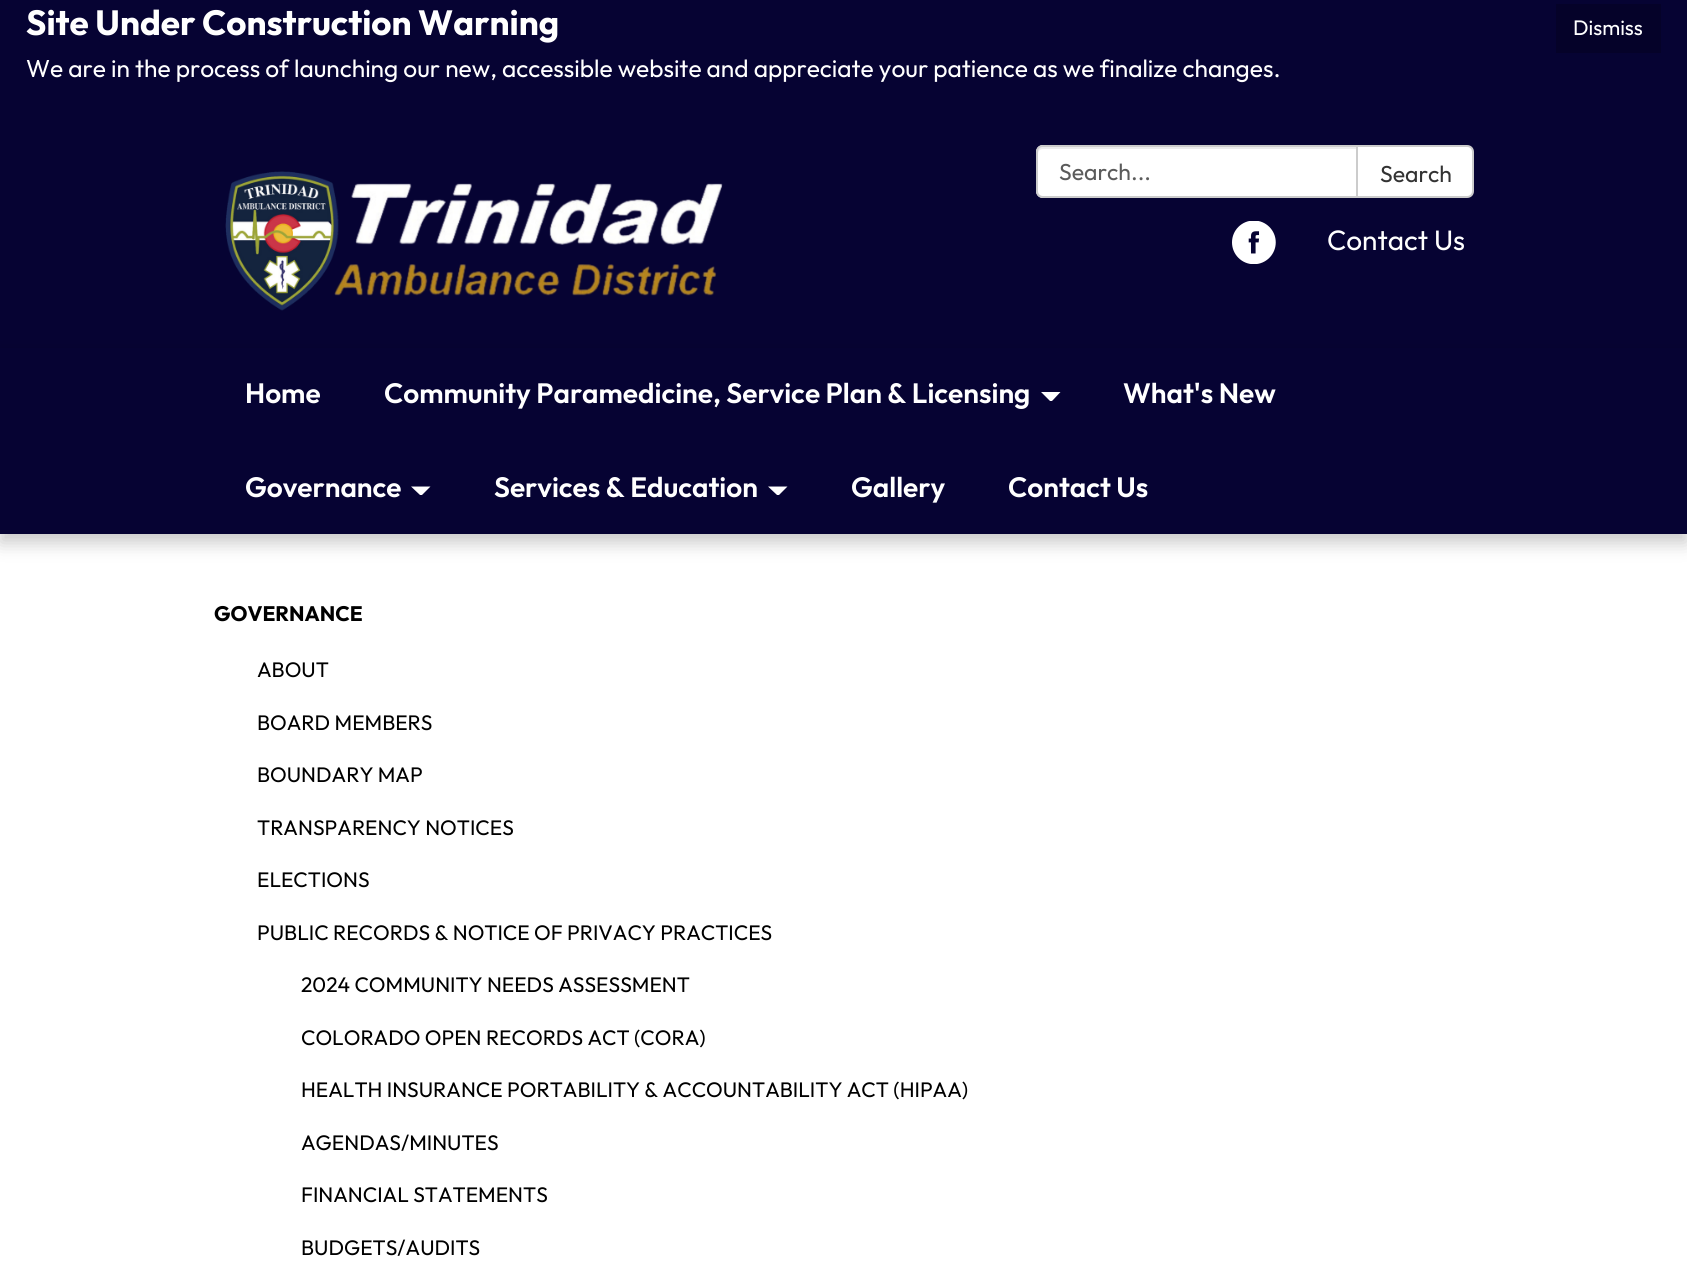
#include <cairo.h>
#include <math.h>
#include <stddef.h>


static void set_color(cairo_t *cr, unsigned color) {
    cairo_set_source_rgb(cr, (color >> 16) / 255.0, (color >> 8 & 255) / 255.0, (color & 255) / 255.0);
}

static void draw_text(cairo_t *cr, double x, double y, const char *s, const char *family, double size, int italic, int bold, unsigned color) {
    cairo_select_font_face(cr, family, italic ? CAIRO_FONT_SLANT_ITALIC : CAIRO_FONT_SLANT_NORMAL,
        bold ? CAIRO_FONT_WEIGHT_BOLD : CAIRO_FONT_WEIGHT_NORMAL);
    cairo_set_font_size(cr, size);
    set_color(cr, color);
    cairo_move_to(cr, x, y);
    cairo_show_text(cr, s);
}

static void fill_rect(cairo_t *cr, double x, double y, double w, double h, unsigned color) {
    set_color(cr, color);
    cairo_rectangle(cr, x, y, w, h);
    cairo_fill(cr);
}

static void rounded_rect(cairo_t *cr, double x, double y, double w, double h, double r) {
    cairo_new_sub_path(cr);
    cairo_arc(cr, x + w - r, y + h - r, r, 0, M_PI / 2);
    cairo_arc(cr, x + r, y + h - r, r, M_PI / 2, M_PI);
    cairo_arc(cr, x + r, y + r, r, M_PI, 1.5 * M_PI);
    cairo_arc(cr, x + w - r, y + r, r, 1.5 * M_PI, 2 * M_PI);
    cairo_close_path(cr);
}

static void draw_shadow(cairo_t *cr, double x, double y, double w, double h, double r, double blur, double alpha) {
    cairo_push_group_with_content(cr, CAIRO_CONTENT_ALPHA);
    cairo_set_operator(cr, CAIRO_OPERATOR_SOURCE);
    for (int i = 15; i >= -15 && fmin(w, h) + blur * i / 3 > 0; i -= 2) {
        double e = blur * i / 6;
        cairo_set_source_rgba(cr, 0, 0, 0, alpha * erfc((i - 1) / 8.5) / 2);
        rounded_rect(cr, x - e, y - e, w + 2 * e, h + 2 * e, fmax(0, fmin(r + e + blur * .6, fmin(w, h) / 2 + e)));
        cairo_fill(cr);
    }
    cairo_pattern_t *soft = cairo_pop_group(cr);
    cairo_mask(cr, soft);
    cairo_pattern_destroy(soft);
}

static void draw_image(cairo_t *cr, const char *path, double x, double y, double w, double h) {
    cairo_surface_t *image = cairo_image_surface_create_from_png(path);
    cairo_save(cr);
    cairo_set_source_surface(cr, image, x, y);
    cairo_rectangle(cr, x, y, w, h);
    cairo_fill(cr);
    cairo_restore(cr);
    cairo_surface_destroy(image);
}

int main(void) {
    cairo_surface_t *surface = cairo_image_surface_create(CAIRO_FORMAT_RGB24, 1687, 1263);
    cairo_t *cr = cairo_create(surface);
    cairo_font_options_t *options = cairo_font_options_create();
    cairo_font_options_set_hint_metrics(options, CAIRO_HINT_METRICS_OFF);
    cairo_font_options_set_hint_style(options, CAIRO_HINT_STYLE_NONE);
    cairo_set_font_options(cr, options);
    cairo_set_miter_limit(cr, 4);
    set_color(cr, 0x060333);
    cairo_paint(cr);
    draw_text(cr, 26, 35, "Site Under Construction Warning", "Outfit", 35, 0, 1, 0xFFFFFF);
    fill_rect(cr, 1556, 4, 105, 49, 0x050229);
    draw_text(cr, 1573, 35, "Dismiss", "Outfit", 21, 0, 0, 0xFFFFFF);
    draw_text(cr, 26, 77, "We are in the process of launching our new, accessible website and appreciate your patience as we finalize changes.", "Outfit", 24.5, 0, 0, 0xFFFFFF);
    draw_image(cr, "assets/img1.png", 225, 171, 498, 140);
    cairo_new_path(cr);
    cairo_move_to(cr, 1043, 145);
    cairo_line_to(cr, 1358, 145);
    cairo_line_to(cr, 1358, 198);
    cairo_line_to(cr, 1043, 198);
    cairo_curve_to(cr, 1039, 198, 1036, 195, 1036, 191);
    cairo_line_to(cr, 1036, 152);
    cairo_curve_to(cr, 1036, 148, 1039, 145, 1043, 145);
    cairo_close_path(cr);
    cairo_fill(cr);
    set_color(cr, 0xECECEC);
    cairo_new_path(cr);
    cairo_move_to(cr, 1043, 149);
    cairo_line_to(cr, 1356, 149);
    cairo_line_to(cr, 1356, 147);
    cairo_line_to(cr, 1043, 147);
    cairo_curve_to(cr, 1040, 147, 1038, 149, 1038, 152);
    cairo_line_to(cr, 1038, 154);
    cairo_curve_to(cr, 1038, 151, 1040, 149, 1043, 149);
    cairo_close_path(cr);
    cairo_fill(cr);
    cairo_new_path(cr);
    cairo_move_to(cr, 1043, 146);
    cairo_line_to(cr, 1357, 146);
    cairo_line_to(cr, 1357, 197);
    cairo_line_to(cr, 1043, 197);
    cairo_curve_to(cr, 1039.5, 197, 1037, 194.5, 1037, 191);
    cairo_line_to(cr, 1037, 152);
    cairo_curve_to(cr, 1037, 148.5, 1039.5, 146, 1043, 146);
    cairo_close_path(cr);
    set_color(cr, 0xCCCCCC);
    cairo_stroke(cr);
    draw_text(cr, 1059, 180, "Search...", "Outfit", 23, 0, 0, 0x5B5B5B);
    set_color(cr, 0xFFFFFF);
    cairo_new_path(cr);
    cairo_move_to(cr, 1357, 146);
    cairo_line_to(cr, 1467, 146);
    cairo_curve_to(cr, 1470.5, 146, 1473, 148.5, 1473, 152);
    cairo_line_to(cr, 1473, 191);
    cairo_curve_to(cr, 1473, 194.5, 1470.5, 197, 1467, 197);
    cairo_line_to(cr, 1357, 197);
    cairo_close_path(cr);
    cairo_fill_preserve(cr);
    set_color(cr, 0xCCCCCC);
    cairo_stroke(cr);
    draw_text(cr, 1380, 182, "Search", "Outfit", 23, 0, 0, 0x333333);
    draw_image(cr, "assets/img2.png", 1232, 221, 44, 43);
    draw_text(cr, 1327, 250, "Contact Us", "Outfit", 28, 0, 0, 0xFFFFFF);
    fill_rect(cr, 0, 534, 1687, 729, 0xFFFFFF);
    set_color(cr, 0x000000);
    draw_shadow(cr, 0, 354, 1687, 189, 0, 9, 0.21);
    fill_rect(cr, 0, 348, 1687, 186, 0x060333);
    draw_text(cr, 245, 403, "Home", "Outfit SemiBold", 28, 0, 0, 0xFFFFFF);
    draw_text(cr, 384, 403, "Community Paramedicine, Service Plan & Licensing", "Outfit SemiBold", 28, 0, 0, 0xFFFFFF);
    cairo_new_path(cr);
    cairo_move_to(cr, 1041, 392);
    cairo_line_to(cr, 1060.5, 392);
    cairo_line_to(cr, 1052, 401);
    cairo_line_to(cr, 1050, 401);
    cairo_close_path(cr);
    cairo_fill(cr);
    draw_text(cr, 1123, 403, "What's New", "Outfit SemiBold", 28, 0, 0, 0xFFFFFF);
    draw_text(cr, 245, 497, "Governance", "Outfit SemiBold", 28, 0, 0, 0xFFFFFF);
    cairo_new_path(cr);
    cairo_move_to(cr, 411, 486.5);
    cairo_line_to(cr, 430.5, 486.5);
    cairo_line_to(cr, 422, 495);
    cairo_line_to(cr, 420, 495);
    cairo_close_path(cr);
    cairo_fill(cr);
    draw_text(cr, 494, 497, "Services & Education", "Outfit SemiBold", 28, 0, 0, 0xFFFFFF);
    cairo_new_path(cr);
    cairo_move_to(cr, 768, 486.5);
    cairo_line_to(cr, 787.5, 486.5);
    cairo_line_to(cr, 779, 495);
    cairo_line_to(cr, 777, 495);
    cairo_close_path(cr);
    cairo_fill(cr);
    draw_text(cr, 851, 497, "Gallery", "Outfit SemiBold", 28, 0, 0, 0xFFFFFF);
    draw_text(cr, 1008, 497, "Contact Us", "Outfit SemiBold", 28, 0, 0, 0xFFFFFF);
    draw_text(cr, 214, 621, "GOVERNANCE", "Outfit", 21, 0, 1, 0x000000);
    draw_text(cr, 257, 677, "ABOUT", "Outfit", 21, 0, 0, 0x000000);
    draw_text(cr, 257, 730, "BOARD MEMBERS", "Outfit", 21, 0, 0, 0x000000);
    draw_text(cr, 257, 782, "BOUNDARY MAP", "Outfit", 21, 0, 0, 0x000000);
    draw_text(cr, 257, 835, "TRANSPARENCY NOTICES", "Outfit", 21, 0, 0, 0x000000);
    draw_text(cr, 257, 887, "ELECTIONS", "Outfit", 21, 0, 0, 0x000000);
    draw_text(cr, 257, 940, "PUBLIC RECORDS & NOTICE OF PRIVACY PRACTICES", "Outfit", 21, 0, 0, 0x000000);
    draw_text(cr, 301, 992, "2024 COMMUNITY NEEDS ASSESSMENT", "Outfit", 21, 0, 0, 0x000000);
    draw_text(cr, 301, 1045, "COLORADO OPEN RECORDS ACT (CORA)", "Outfit", 21, 0, 0, 0x000000);
    draw_text(cr, 301, 1097, "HEALTH INSURANCE PORTABILITY & ACCOUNTABILITY ACT (HIPAA)", "Outfit", 21, 0, 0, 0x000000);
    draw_text(cr, 301, 1150, "AGENDAS/MINUTES", "Outfit", 21, 0, 0, 0x000000);
    draw_text(cr, 301, 1202, "FINANCIAL STATEMENTS", "Outfit", 21, 0, 0, 0x000000);
    draw_text(cr, 301, 1255, "BUDGETS/AUDITS", "Outfit", 21, 0, 0, 0x000000);
    cairo_surface_write_to_png(surface, "output.png");
    cairo_font_options_destroy(options);
    cairo_destroy(cr);
    cairo_surface_destroy(surface);
    return 0;
}
